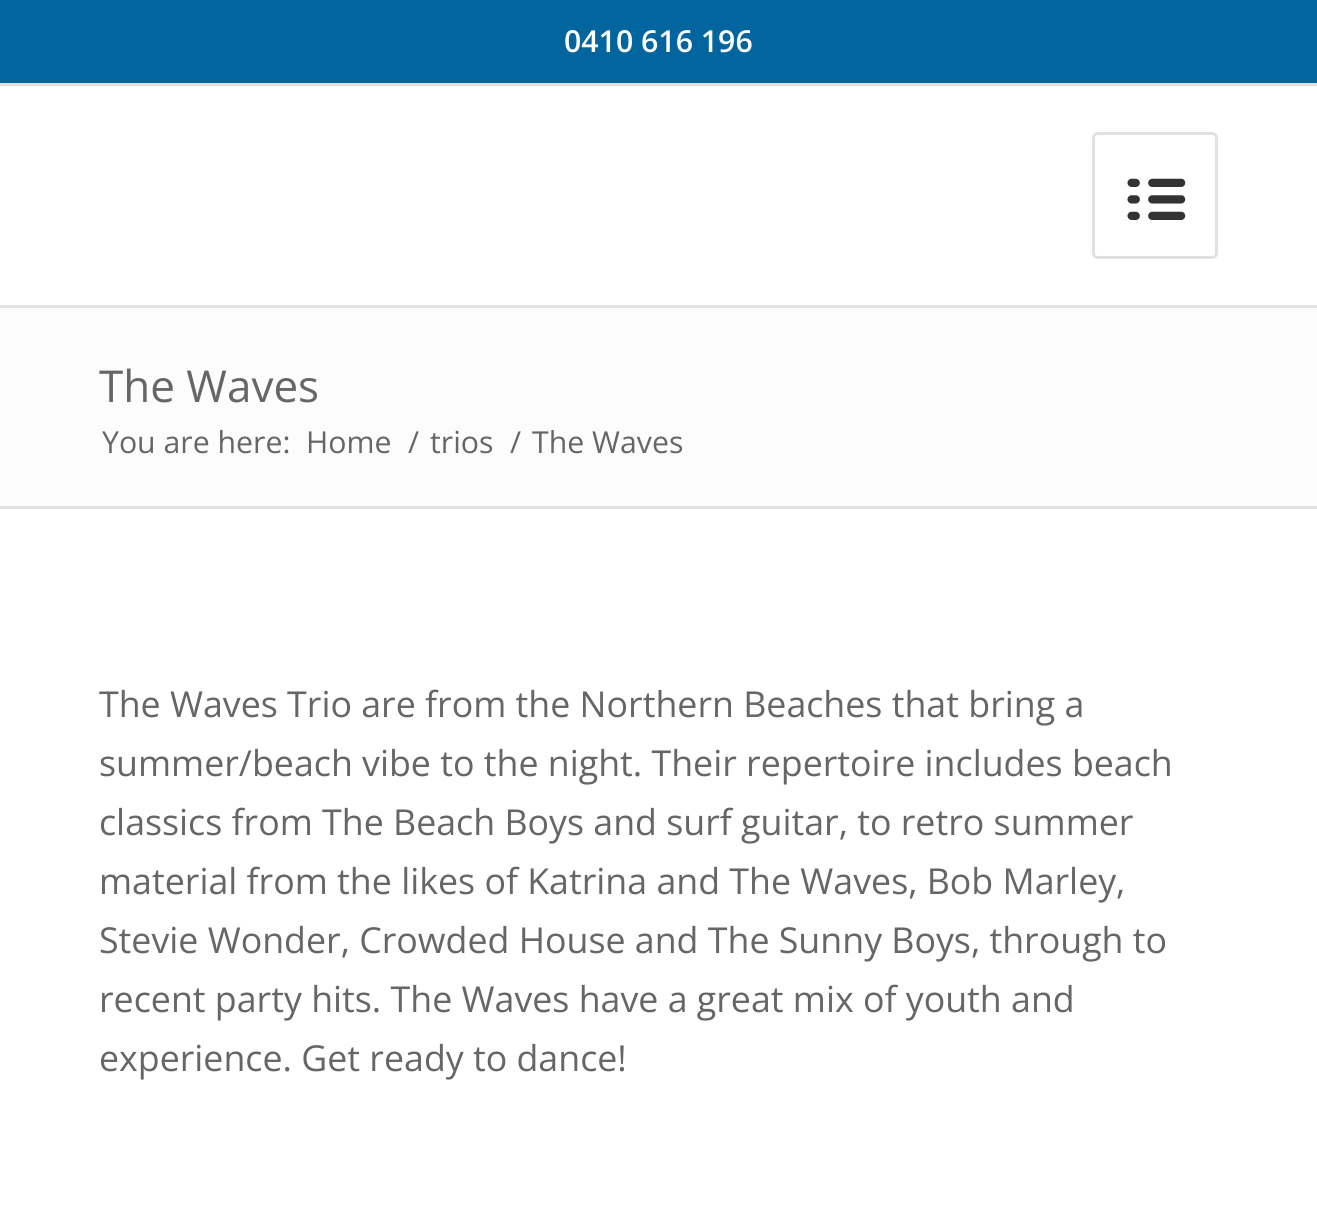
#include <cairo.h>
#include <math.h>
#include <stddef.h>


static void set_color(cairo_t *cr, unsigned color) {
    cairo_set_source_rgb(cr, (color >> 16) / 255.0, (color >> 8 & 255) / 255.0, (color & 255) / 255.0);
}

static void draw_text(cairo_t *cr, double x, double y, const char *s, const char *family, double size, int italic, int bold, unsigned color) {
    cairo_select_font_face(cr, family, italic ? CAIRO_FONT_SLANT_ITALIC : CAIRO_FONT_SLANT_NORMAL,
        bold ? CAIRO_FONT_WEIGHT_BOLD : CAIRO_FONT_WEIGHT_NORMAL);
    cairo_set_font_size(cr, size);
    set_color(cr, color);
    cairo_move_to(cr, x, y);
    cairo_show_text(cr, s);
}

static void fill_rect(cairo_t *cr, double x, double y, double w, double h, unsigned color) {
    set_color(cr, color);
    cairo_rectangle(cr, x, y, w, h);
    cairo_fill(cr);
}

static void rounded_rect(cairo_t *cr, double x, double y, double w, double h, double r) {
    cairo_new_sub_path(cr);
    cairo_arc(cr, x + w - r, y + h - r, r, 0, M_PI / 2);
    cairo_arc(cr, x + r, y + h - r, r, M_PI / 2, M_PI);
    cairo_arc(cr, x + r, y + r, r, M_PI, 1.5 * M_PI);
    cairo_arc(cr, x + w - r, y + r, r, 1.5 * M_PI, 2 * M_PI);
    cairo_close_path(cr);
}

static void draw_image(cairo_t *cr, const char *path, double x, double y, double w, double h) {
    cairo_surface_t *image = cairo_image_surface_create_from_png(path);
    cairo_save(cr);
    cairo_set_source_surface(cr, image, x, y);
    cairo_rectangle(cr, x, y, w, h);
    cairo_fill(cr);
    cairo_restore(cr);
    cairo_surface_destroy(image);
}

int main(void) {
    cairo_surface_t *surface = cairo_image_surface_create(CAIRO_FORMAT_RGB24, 1317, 1231);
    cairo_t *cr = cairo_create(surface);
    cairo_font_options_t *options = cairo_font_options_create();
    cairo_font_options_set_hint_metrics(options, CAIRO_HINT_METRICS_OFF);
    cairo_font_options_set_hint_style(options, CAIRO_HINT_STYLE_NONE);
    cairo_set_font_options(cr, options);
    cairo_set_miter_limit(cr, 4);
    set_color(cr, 0xFFFFFF);
    cairo_paint(cr);
    fill_rect(cr, 0, 0, 1317, 83, 0x02659E);
    fill_rect(cr, 0, 83, 1317, 3, 0xE1E1E1);
    draw_text(cr, 564, 52, "0410 616 196", "Open Sans SemiBold", 30.25, 0, 0, 0xFFFFFF);
    fill_rect(cr, 0, 305, 1317, 3, 0xE1E1E1);
    rounded_rect(cr, 1093.5, 133.5, 123, 124, 4.5);
    cairo_set_line_width(cr, 3);
    cairo_stroke(cr);
    draw_image(cr, "assets/img1.png", 1127, 178, 59, 42);
    fill_rect(cr, 0, 308, 1317, 198, 0xFCFCFC);
    draw_text(cr, 99, 402, "The Waves", "Open Sans", 44, 0, 0, 0x666666);
    draw_text(cr, 102, 453, "You are here:", "Open Sans", 30.25, 0, 0, 0x666666);
    draw_text(cr, 306, 453, "Home", "Open Sans", 30.25, 0, 0, 0x666666);
    draw_text(cr, 408, 453, "/", "Open Sans", 30.25, 0, 0, 0x666666);
    draw_text(cr, 430, 453, "trios", "Open Sans", 30.25, 0, 0, 0x666666);
    draw_text(cr, 510, 453, "/", "Open Sans", 30.25, 0, 0, 0x666666);
    draw_text(cr, 532, 453, "The Waves", "Open Sans", 30.25, 0, 0, 0x666666);
    fill_rect(cr, 0, 506, 1317, 3, 0xE1E1E1);
    draw_text(cr, 99, 717, "The Waves Trio are from the Northern Beaches that bring a", "Open Sans", 35.75, 0, 0, 0x666666);
    draw_text(cr, 99, 776, "summer/beach vibe to the night. Their repertoire includes beach", "Open Sans", 35.75, 0, 0, 0x666666);
    draw_text(cr, 99, 835, "classics from The Beach Boys and surf guitar, to retro summer", "Open Sans", 35.75, 0, 0, 0x666666);
    draw_text(cr, 99, 894, "material from the likes of Katrina and The Waves, Bob Marley,", "Open Sans", 35.75, 0, 0, 0x666666);
    draw_text(cr, 99, 953, "Stevie Wonder, Crowded House and The Sunny Boys, through to", "Open Sans", 35.75, 0, 0, 0x666666);
    draw_text(cr, 99, 1012, "recent party hits. The Waves have a great mix of youth and", "Open Sans", 35.75, 0, 0, 0x666666);
    draw_text(cr, 99, 1071, "experience. Get ready to dance!", "Open Sans", 35.75, 0, 0, 0x666666);
    cairo_surface_write_to_png(surface, "output.png");
    cairo_font_options_destroy(options);
    cairo_destroy(cr);
    cairo_surface_destroy(surface);
    return 0;
}
